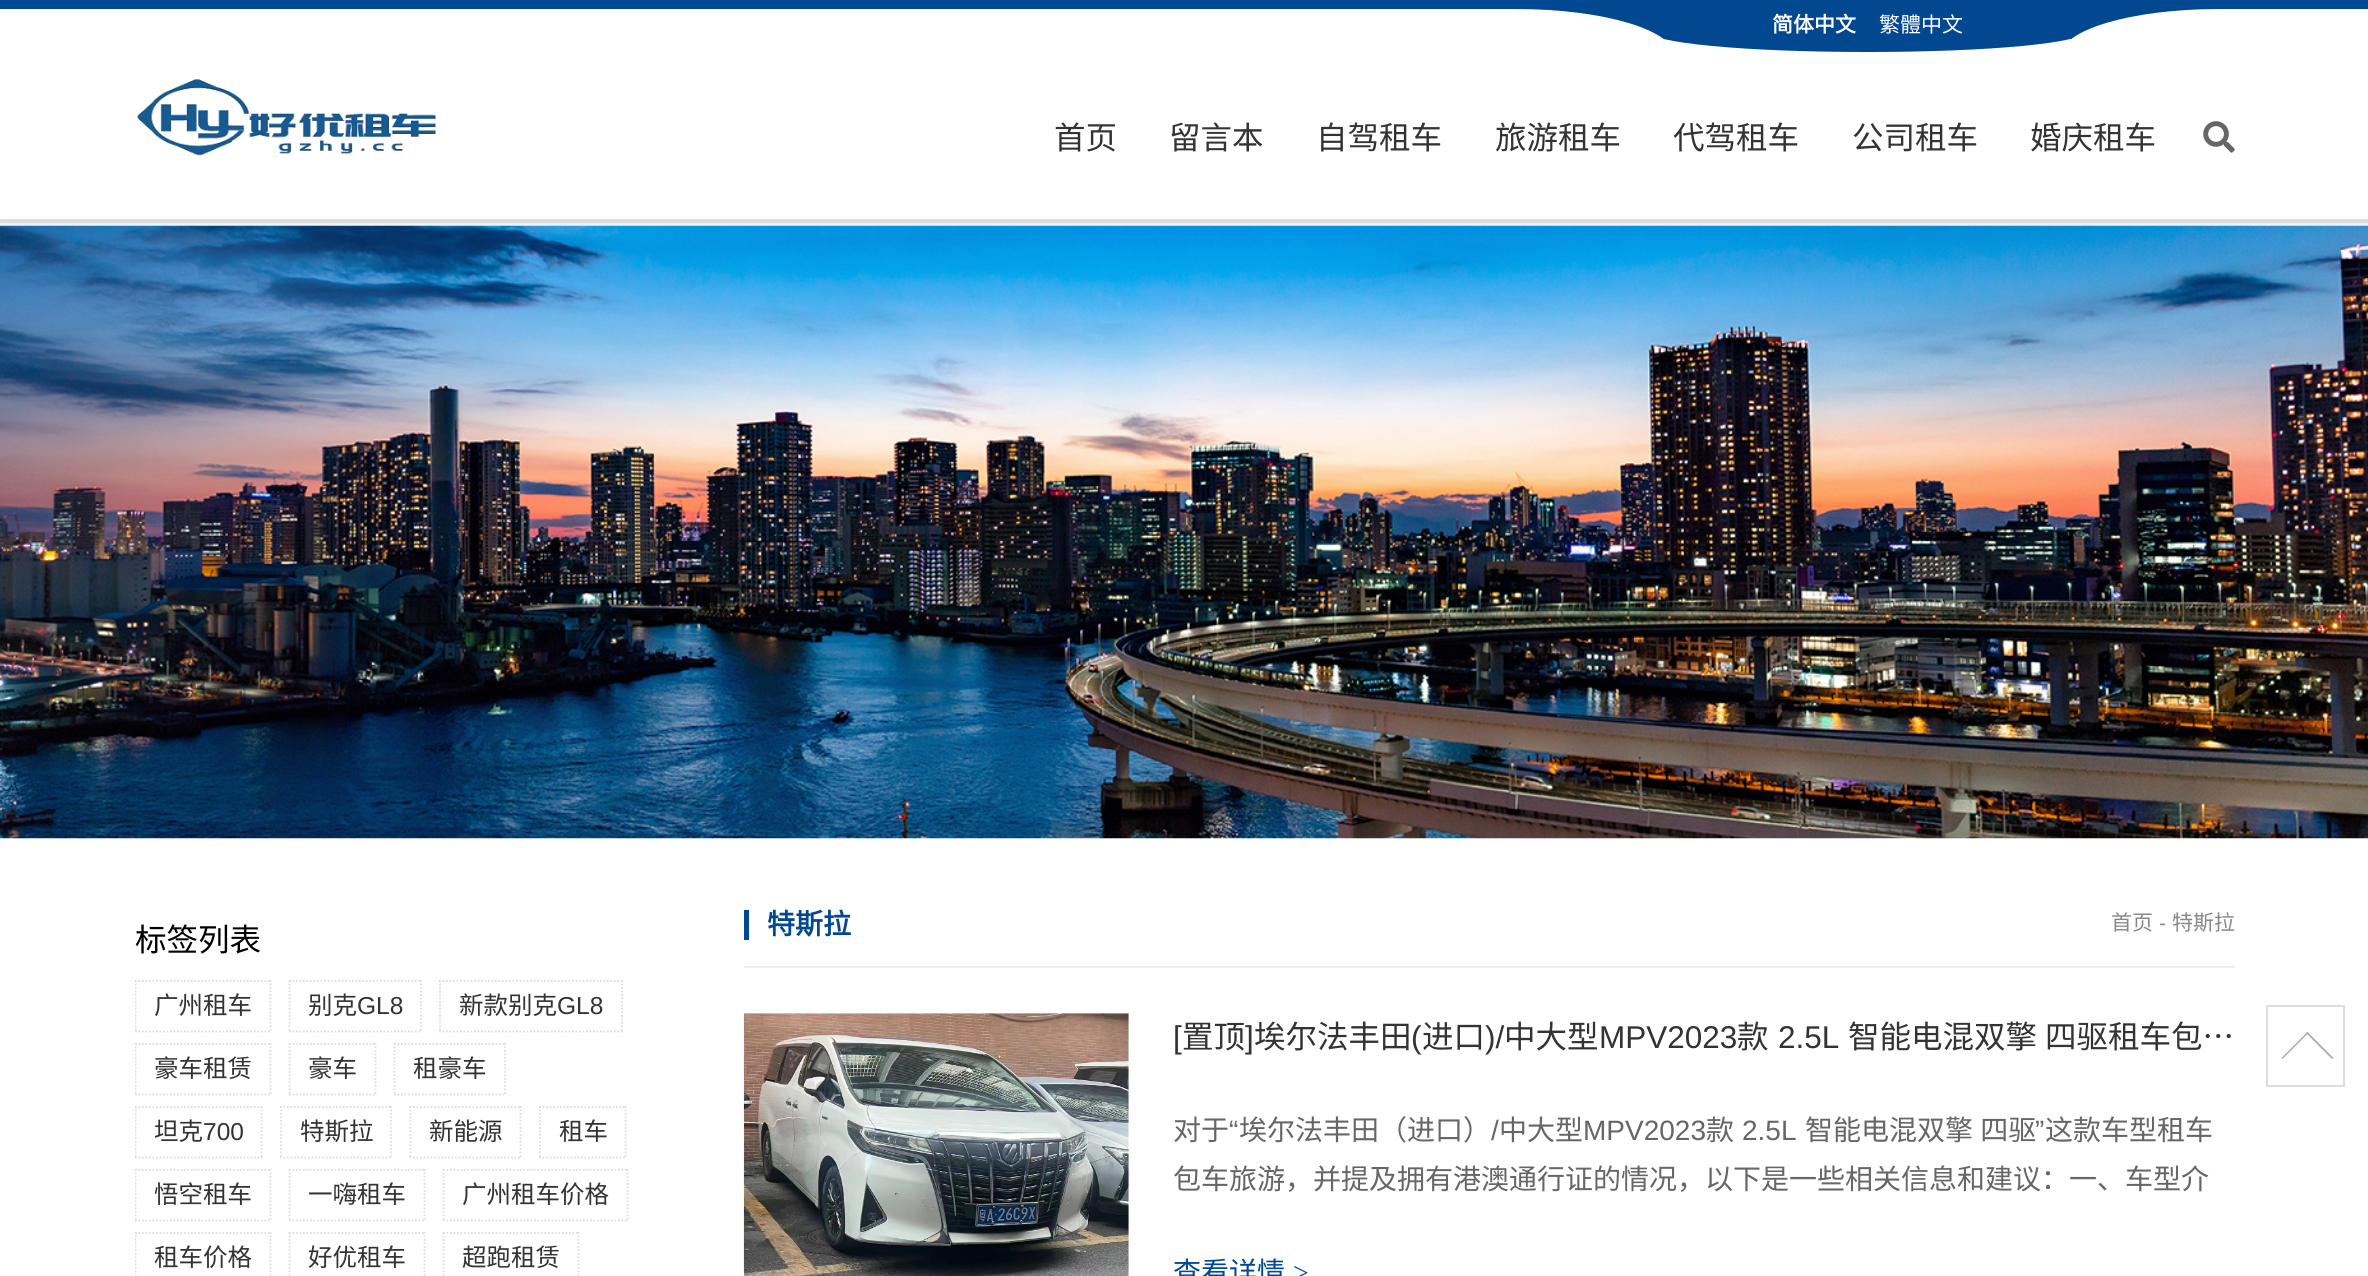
#include <cairo.h>
#include <math.h>
#include <stddef.h>


static void set_color(cairo_t *cr, unsigned color) {
    cairo_set_source_rgb(cr, (color >> 16) / 255.0, (color >> 8 & 255) / 255.0, (color & 255) / 255.0);
}

static void draw_text(cairo_t *cr, double x, double y, const char *s, const char *family, double size, int italic, int bold, unsigned color) {
    cairo_select_font_face(cr, family, italic ? CAIRO_FONT_SLANT_ITALIC : CAIRO_FONT_SLANT_NORMAL,
        bold ? CAIRO_FONT_WEIGHT_BOLD : CAIRO_FONT_WEIGHT_NORMAL);
    cairo_set_font_size(cr, size);
    set_color(cr, color);
    cairo_move_to(cr, x, y);
    cairo_show_text(cr, s);
}

static void draw_spaced(cairo_t *cr, double x, double y, const char *s, double letter, double word) {
    cairo_move_to(cr, x, y);
    while (*s) {
        char ch[5] = {0};
        int n = 0;
        do ch[n++] = *s++; while ((*s & 0xC0) == 0x80);
        cairo_show_text(cr, ch);
        cairo_rel_move_to(cr, letter + word * (*ch == ' '), 0);
    }
}

static void fill_rect(cairo_t *cr, double x, double y, double w, double h, unsigned color) {
    set_color(cr, color);
    cairo_rectangle(cr, x, y, w, h);
    cairo_fill(cr);
}

static void rounded_rect(cairo_t *cr, double x, double y, double w, double h, double r) {
    cairo_new_sub_path(cr);
    cairo_arc(cr, x + w - r, y + h - r, r, 0, M_PI / 2);
    cairo_arc(cr, x + r, y + h - r, r, M_PI / 2, M_PI);
    cairo_arc(cr, x + r, y + r, r, M_PI, 1.5 * M_PI);
    cairo_arc(cr, x + w - r, y + r, r, 1.5 * M_PI, 2 * M_PI);
    cairo_close_path(cr);
}

static void draw_shadow(cairo_t *cr, double x, double y, double w, double h, double r, double blur, double alpha) {
    cairo_push_group_with_content(cr, CAIRO_CONTENT_ALPHA);
    cairo_set_operator(cr, CAIRO_OPERATOR_SOURCE);
    for (int i = 15; i >= -15 && fmin(w, h) + blur * i / 3 > 0; i -= 2) {
        double e = blur * i / 6;
        cairo_set_source_rgba(cr, 0, 0, 0, alpha * erfc((i - 1) / 8.5) / 2);
        rounded_rect(cr, x - e, y - e, w + 2 * e, h + 2 * e, fmax(0, fmin(r + e + blur * .6, fmin(w, h) / 2 + e)));
        cairo_fill(cr);
    }
    cairo_pattern_t *soft = cairo_pop_group(cr);
    cairo_mask(cr, soft);
    cairo_pattern_destroy(soft);
}

static void draw_image(cairo_t *cr, const char *path, double x, double y, double w, double h) {
    cairo_surface_t *image = cairo_image_surface_create_from_png(path);
    cairo_save(cr);
    cairo_set_source_surface(cr, image, x, y);
    cairo_rectangle(cr, x, y, w, h);
    cairo_fill(cr);
    cairo_restore(cr);
    cairo_surface_destroy(image);
}

int main(void) {
    cairo_surface_t *surface = cairo_image_surface_create(CAIRO_FORMAT_RGB24, 2368, 1276);
    cairo_t *cr = cairo_create(surface);
    cairo_font_options_t *options = cairo_font_options_create();
    cairo_font_options_set_hint_metrics(options, CAIRO_HINT_METRICS_OFF);
    cairo_font_options_set_hint_style(options, CAIRO_HINT_STYLE_NONE);
    cairo_set_font_options(cr, options);
    cairo_set_miter_limit(cr, 4);
    set_color(cr, 0xFFFFFF);
    cairo_paint(cr);
    cairo_save(cr);
    cairo_rectangle(cr, 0, 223, 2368, 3);
    cairo_clip(cr);
    set_color(cr, 0xEEEEEE);
    draw_shadow(cr, 0, 4, 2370, 222, 0, 2, 1);
    cairo_restore(cr);
    fill_rect(cr, 0, 0, 2368, 9, 0x024890);
    fill_rect(cr, 0, 219, 2368, 4, 0xDDDDDD);
    set_color(cr, 0x024890);
    cairo_new_path(cr);
    cairo_move_to(cr, 1648, 9);
    cairo_line_to(cr, 2086, 9);
    cairo_line_to(cr, 2086, 31);
    cairo_curve_to(cr, 2086, 43, 1988, 52, 1867, 52);
    cairo_curve_to(cr, 1746, 52, 1648, 43, 1648, 31);
    cairo_close_path(cr);
    cairo_fill(cr);
    fill_rect(cr, 1518, 9, 146, 30, 0x024890);
    cairo_save(cr);
    cairo_rectangle(cr, 1500, 9, 175, 30);
    cairo_clip(cr);
    set_color(cr, 0xFFFFFF);
    cairo_new_path(cr);
    cairo_move_to(cr, 1500, 9);
    cairo_line_to(cr, 1516, 9);
    cairo_curve_to(cr, 1603, 9, 1675, 30, 1675, 57);
    cairo_line_to(cr, 1675, 61);
    cairo_line_to(cr, 1500, 61);
    cairo_close_path(cr);
    cairo_fill(cr);
    cairo_restore(cr);
    draw_text(cr, 1772, 32, "简体中文", "Noto Sans CJK SC", 21, 0, 1, 0xFFFFFF);
    draw_text(cr, 1879, 32, "繁體中文", "Noto Sans CJK SC", 21, 0, 0, 0xFFFFFF);
    fill_rect(cr, 2070, 9, 147, 30, 0x024890);
    cairo_save(cr);
    cairo_rectangle(cr, 2060, 9, 175, 30);
    cairo_clip(cr);
    set_color(cr, 0xFFFFFF);
    cairo_new_path(cr);
    cairo_move_to(cr, 2219, 9);
    cairo_line_to(cr, 2235, 9);
    cairo_line_to(cr, 2235, 61);
    cairo_line_to(cr, 2060, 61);
    cairo_line_to(cr, 2060, 57);
    cairo_curve_to(cr, 2060, 30, 2131, 9, 2219, 9);
    cairo_close_path(cr);
    cairo_fill(cr);
    cairo_restore(cr);
    draw_image(cr, "assets/img1.png", 137, 79, 299, 77);
    draw_text(cr, 1054, 149, "首页", "Noto Sans CJK SC", 31.5, 0, 0, 0x333333);
    draw_text(cr, 1169, 149, "留言本", "Noto Sans CJK SC", 31.5, 0, 0, 0x333333);
    draw_text(cr, 1316, 149, "自驾租车", "Noto Sans CJK SC", 31.5, 0, 0, 0x333333);
    draw_text(cr, 1495, 149, "旅游租车", "Noto Sans CJK SC", 31.5, 0, 0, 0x333333);
    draw_text(cr, 1673, 149, "代驾租车", "Noto Sans CJK SC", 31.5, 0, 0, 0x333333);
    draw_text(cr, 1852, 149, "公司租车", "Noto Sans CJK SC", 31.5, 0, 0, 0x333333);
    draw_text(cr, 2030, 149, "婚庆租车", "Noto Sans CJK SC", 31.5, 0, 0, 0x333333);
    draw_image(cr, "assets/img2.png", 2203, 121, 32, 32);
    draw_image(cr, "assets/img3.png", 0, 225, 2368, 614);
    draw_text(cr, 135, 951, "标签列表", "Noto Sans CJK SC", 31.5, 0, 0, 0x000000);
    cairo_new_path(cr);
    cairo_move_to(cr, 135, 981);
    cairo_line_to(cr, 271, 981);
    set_color(cr, 0xDDDDDD);
    cairo_set_line_width(cr, 1.8);
    cairo_set_dash(cr, (double[]){1.75, 1.75}, 2, 0);
    cairo_stroke(cr);
    cairo_new_path(cr);
    cairo_move_to(cr, 270.5, 980);
    cairo_line_to(cr, 270.5, 1032.5);
    cairo_stroke(cr);
    cairo_new_path(cr);
    cairo_move_to(cr, 135, 1031.5);
    cairo_line_to(cr, 271, 1031.5);
    cairo_stroke(cr);
    cairo_save(cr);
    cairo_rectangle(cr, 135, 975, 525, 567);
    cairo_clip(cr);
    cairo_new_path(cr);
    cairo_move_to(cr, 135.5, 980);
    cairo_line_to(cr, 135.5, 1032.5);
    cairo_stroke(cr);
    cairo_restore(cr);
    draw_text(cr, 154, 1014, "广州租车", "Noto Sans CJK SC", 24.5, 0, 0, 0x333333);
    cairo_new_path(cr);
    cairo_move_to(cr, 289, 981);
    cairo_line_to(cr, 422, 981);
    set_color(cr, 0xDDDDDD);
    cairo_stroke(cr);
    cairo_new_path(cr);
    cairo_move_to(cr, 421, 980);
    cairo_line_to(cr, 421, 1032.5);
    cairo_stroke(cr);
    cairo_new_path(cr);
    cairo_move_to(cr, 289, 1031.5);
    cairo_line_to(cr, 422, 1031.5);
    cairo_stroke(cr);
    cairo_new_path(cr);
    cairo_move_to(cr, 289.5, 980);
    cairo_line_to(cr, 289.5, 1032.5);
    cairo_stroke(cr);
    draw_text(cr, 308, 1014, "别克", "Noto Sans CJK SC", 24.5, 0, 0, 0x333333);
    draw_text(cr, 357, 1014, "GL8", "Liberation Sans", 24.5, 0, 0, 0x333333);
    cairo_new_path(cr);
    cairo_move_to(cr, 439, 981);
    cairo_line_to(cr, 623, 981);
    set_color(cr, 0xDDDDDD);
    cairo_stroke(cr);
    cairo_new_path(cr);
    cairo_move_to(cr, 622, 980);
    cairo_line_to(cr, 622, 1032.5);
    cairo_stroke(cr);
    cairo_new_path(cr);
    cairo_move_to(cr, 439, 1031.5);
    cairo_line_to(cr, 623, 1031.5);
    cairo_stroke(cr);
    cairo_new_path(cr);
    cairo_move_to(cr, 440, 980);
    cairo_line_to(cr, 440, 1032.5);
    cairo_stroke(cr);
    draw_text(cr, 459, 1014, "新款别克", "Noto Sans CJK SC", 24.5, 0, 0, 0x333333);
    draw_text(cr, 557, 1014, "GL8", "Liberation Sans", 24.5, 0, 0, 0x333333);
    cairo_new_path(cr);
    cairo_move_to(cr, 135, 1044);
    cairo_line_to(cr, 271, 1044);
    set_color(cr, 0xDDDDDD);
    cairo_stroke(cr);
    cairo_new_path(cr);
    cairo_move_to(cr, 270.5, 1043);
    cairo_line_to(cr, 270.5, 1095.5);
    cairo_stroke(cr);
    cairo_new_path(cr);
    cairo_move_to(cr, 135, 1094.5);
    cairo_line_to(cr, 271, 1094.5);
    cairo_stroke(cr);
    cairo_save(cr);
    cairo_rectangle(cr, 135, 975, 525, 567);
    cairo_clip(cr);
    cairo_new_path(cr);
    cairo_move_to(cr, 135.5, 1043);
    cairo_line_to(cr, 135.5, 1095.5);
    cairo_stroke(cr);
    cairo_restore(cr);
    draw_text(cr, 154, 1077, "豪车租赁", "Noto Sans CJK SC", 24.5, 0, 0, 0x333333);
    cairo_new_path(cr);
    cairo_move_to(cr, 289, 1044);
    cairo_line_to(cr, 376, 1044);
    set_color(cr, 0xDDDDDD);
    cairo_stroke(cr);
    cairo_new_path(cr);
    cairo_move_to(cr, 375.5, 1043);
    cairo_line_to(cr, 375.5, 1095.5);
    cairo_stroke(cr);
    cairo_new_path(cr);
    cairo_move_to(cr, 289, 1094.5);
    cairo_line_to(cr, 376, 1094.5);
    cairo_stroke(cr);
    cairo_new_path(cr);
    cairo_move_to(cr, 289.5, 1043);
    cairo_line_to(cr, 289.5, 1095.5);
    cairo_stroke(cr);
    draw_text(cr, 308, 1077, "豪车", "Noto Sans CJK SC", 24.5, 0, 0, 0x333333);
    cairo_new_path(cr);
    cairo_move_to(cr, 394, 1044);
    cairo_line_to(cr, 506, 1044);
    set_color(cr, 0xDDDDDD);
    cairo_stroke(cr);
    cairo_new_path(cr);
    cairo_move_to(cr, 505, 1043);
    cairo_line_to(cr, 505, 1095.5);
    cairo_stroke(cr);
    cairo_new_path(cr);
    cairo_move_to(cr, 394, 1094.5);
    cairo_line_to(cr, 506, 1094.5);
    cairo_stroke(cr);
    cairo_new_path(cr);
    cairo_move_to(cr, 394.5, 1043);
    cairo_line_to(cr, 394.5, 1095.5);
    cairo_stroke(cr);
    draw_text(cr, 413, 1077, "租豪车", "Noto Sans CJK SC", 24.5, 0, 0, 0x333333);
    cairo_new_path(cr);
    cairo_move_to(cr, 135, 1107);
    cairo_line_to(cr, 262.5, 1107);
    set_color(cr, 0xDDDDDD);
    cairo_stroke(cr);
    cairo_new_path(cr);
    cairo_move_to(cr, 261.5, 1106);
    cairo_line_to(cr, 261.5, 1158.5);
    cairo_stroke(cr);
    cairo_new_path(cr);
    cairo_move_to(cr, 135, 1157.5);
    cairo_line_to(cr, 262.5, 1157.5);
    cairo_stroke(cr);
    cairo_save(cr);
    cairo_rectangle(cr, 135, 975, 525, 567);
    cairo_clip(cr);
    cairo_new_path(cr);
    cairo_move_to(cr, 135.5, 1106);
    cairo_line_to(cr, 135.5, 1158.5);
    cairo_stroke(cr);
    cairo_restore(cr);
    draw_text(cr, 154, 1140, "坦克", "Noto Sans CJK SC", 24.5, 0, 0, 0x333333);
    draw_text(cr, 203, 1140, "700", "Liberation Sans", 24.5, 0, 0, 0x333333);
    cairo_new_path(cr);
    cairo_move_to(cr, 280, 1107);
    cairo_line_to(cr, 392, 1107);
    set_color(cr, 0xDDDDDD);
    cairo_stroke(cr);
    cairo_new_path(cr);
    cairo_move_to(cr, 391, 1106);
    cairo_line_to(cr, 391, 1158.5);
    cairo_stroke(cr);
    cairo_new_path(cr);
    cairo_move_to(cr, 280, 1157.5);
    cairo_line_to(cr, 392, 1157.5);
    cairo_stroke(cr);
    cairo_new_path(cr);
    cairo_move_to(cr, 281, 1106);
    cairo_line_to(cr, 281, 1158.5);
    cairo_stroke(cr);
    draw_text(cr, 300, 1140, "特斯拉", "Noto Sans CJK SC", 24.5, 0, 0, 0x333333);
    cairo_new_path(cr);
    cairo_move_to(cr, 409.5, 1107);
    cairo_line_to(cr, 521.5, 1107);
    set_color(cr, 0xDDDDDD);
    cairo_stroke(cr);
    cairo_new_path(cr);
    cairo_move_to(cr, 520.5, 1106);
    cairo_line_to(cr, 520.5, 1158.5);
    cairo_stroke(cr);
    cairo_new_path(cr);
    cairo_move_to(cr, 409.5, 1157.5);
    cairo_line_to(cr, 521.5, 1157.5);
    cairo_stroke(cr);
    cairo_new_path(cr);
    cairo_move_to(cr, 410.5, 1106);
    cairo_line_to(cr, 410.5, 1158.5);
    cairo_stroke(cr);
    draw_text(cr, 429, 1140, "新能源", "Noto Sans CJK SC", 24.5, 0, 0, 0x333333);
    cairo_new_path(cr);
    cairo_move_to(cr, 539, 1107);
    cairo_line_to(cr, 626.5, 1107);
    set_color(cr, 0xDDDDDD);
    cairo_stroke(cr);
    cairo_new_path(cr);
    cairo_move_to(cr, 625.5, 1106);
    cairo_line_to(cr, 625.5, 1158.5);
    cairo_stroke(cr);
    cairo_new_path(cr);
    cairo_move_to(cr, 539, 1157.5);
    cairo_line_to(cr, 626.5, 1157.5);
    cairo_stroke(cr);
    cairo_new_path(cr);
    cairo_move_to(cr, 540, 1106);
    cairo_line_to(cr, 540, 1158.5);
    cairo_stroke(cr);
    draw_text(cr, 559, 1140, "租车", "Noto Sans CJK SC", 24.5, 0, 0, 0x333333);
    cairo_new_path(cr);
    cairo_move_to(cr, 135, 1170);
    cairo_line_to(cr, 271, 1170);
    set_color(cr, 0xDDDDDD);
    cairo_stroke(cr);
    cairo_new_path(cr);
    cairo_move_to(cr, 270.5, 1169);
    cairo_line_to(cr, 270.5, 1221.5);
    cairo_stroke(cr);
    cairo_new_path(cr);
    cairo_move_to(cr, 135, 1220.5);
    cairo_line_to(cr, 271, 1220.5);
    cairo_stroke(cr);
    cairo_save(cr);
    cairo_rectangle(cr, 135, 975, 525, 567);
    cairo_clip(cr);
    cairo_new_path(cr);
    cairo_move_to(cr, 135.5, 1169);
    cairo_line_to(cr, 135.5, 1221.5);
    cairo_stroke(cr);
    cairo_restore(cr);
    draw_text(cr, 154, 1203, "悟空租车", "Noto Sans CJK SC", 24.5, 0, 0, 0x333333);
    cairo_new_path(cr);
    cairo_move_to(cr, 289, 1170);
    cairo_line_to(cr, 425, 1170);
    set_color(cr, 0xDDDDDD);
    cairo_stroke(cr);
    cairo_new_path(cr);
    cairo_move_to(cr, 424.5, 1169);
    cairo_line_to(cr, 424.5, 1221.5);
    cairo_stroke(cr);
    cairo_new_path(cr);
    cairo_move_to(cr, 289, 1220.5);
    cairo_line_to(cr, 425, 1220.5);
    cairo_stroke(cr);
    cairo_new_path(cr);
    cairo_move_to(cr, 289.5, 1169);
    cairo_line_to(cr, 289.5, 1221.5);
    cairo_stroke(cr);
    draw_text(cr, 308, 1203, "一嗨租车", "Noto Sans CJK SC", 24.5, 0, 0, 0x333333);
    cairo_new_path(cr);
    cairo_move_to(cr, 443, 1170);
    cairo_line_to(cr, 628, 1170);
    set_color(cr, 0xDDDDDD);
    cairo_stroke(cr);
    cairo_new_path(cr);
    cairo_move_to(cr, 627.5, 1169);
    cairo_line_to(cr, 627.5, 1221.5);
    cairo_stroke(cr);
    cairo_new_path(cr);
    cairo_move_to(cr, 443, 1220.5);
    cairo_line_to(cr, 628, 1220.5);
    cairo_stroke(cr);
    cairo_new_path(cr);
    cairo_move_to(cr, 443.5, 1169);
    cairo_line_to(cr, 443.5, 1221.5);
    cairo_stroke(cr);
    draw_text(cr, 462, 1203, "广州租车价格", "Noto Sans CJK SC", 24.5, 0, 0, 0x333333);
    cairo_new_path(cr);
    cairo_move_to(cr, 135, 1233);
    cairo_line_to(cr, 271, 1233);
    set_color(cr, 0xDDDDDD);
    cairo_stroke(cr);
    cairo_new_path(cr);
    cairo_move_to(cr, 270.5, 1232);
    cairo_line_to(cr, 270.5, 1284.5);
    cairo_stroke(cr);
    cairo_save(cr);
    cairo_rectangle(cr, 135, 975, 525, 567);
    cairo_clip(cr);
    cairo_new_path(cr);
    cairo_move_to(cr, 135.5, 1232);
    cairo_line_to(cr, 135.5, 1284.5);
    cairo_stroke(cr);
    cairo_restore(cr);
    draw_text(cr, 154, 1266, "租车价格", "Noto Sans CJK SC", 24.5, 0, 0, 0x333333);
    cairo_new_path(cr);
    cairo_move_to(cr, 289, 1233);
    cairo_line_to(cr, 425, 1233);
    set_color(cr, 0xDDDDDD);
    cairo_stroke(cr);
    cairo_new_path(cr);
    cairo_move_to(cr, 424.5, 1232);
    cairo_line_to(cr, 424.5, 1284.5);
    cairo_stroke(cr);
    cairo_new_path(cr);
    cairo_move_to(cr, 289.5, 1232);
    cairo_line_to(cr, 289.5, 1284.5);
    cairo_stroke(cr);
    draw_text(cr, 308, 1266, "好优租车", "Noto Sans CJK SC", 24.5, 0, 0, 0x333333);
    cairo_new_path(cr);
    cairo_move_to(cr, 443, 1233);
    cairo_line_to(cr, 579, 1233);
    set_color(cr, 0xDDDDDD);
    cairo_stroke(cr);
    cairo_new_path(cr);
    cairo_move_to(cr, 578.5, 1232);
    cairo_line_to(cr, 578.5, 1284.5);
    cairo_stroke(cr);
    cairo_new_path(cr);
    cairo_move_to(cr, 443.5, 1232);
    cairo_line_to(cr, 443.5, 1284.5);
    cairo_stroke(cr);
    draw_text(cr, 462, 1266, "超跑租赁", "Noto Sans CJK SC", 24.5, 0, 0, 0x333333);
    fill_rect(cr, 744, 966, 1491, 2, 0xEEEEEE);
    fill_rect(cr, 744, 910, 5, 30, 0x024890);
    draw_text(cr, 767, 934, "特斯拉", "Noto Sans CJK SC", 28, 0, 1, 0x024890);
    draw_text(cr, 2111, 930, "首页", "Noto Sans CJK SC", 21, 0, 0, 0x888888);
    draw_text(cr, 2159, 930, "-", "Liberation Sans", 21, 0, 0, 0x888888);
    draw_text(cr, 2172, 930, "特斯拉", "Noto Sans CJK SC", 21, 0, 0, 0x888888);
    draw_image(cr, "assets/img4.png", 743, 1013, 386, 263);
    draw_text(cr, 1173, 1048, "[", "Liberation Sans", 31.5, 0, 0, 0x333333);
    draw_text(cr, 1182, 1048, "置顶", "Noto Sans CJK SC", 31.5, 0, 0, 0x333333);
    draw_text(cr, 1245, 1048, "]", "Liberation Sans", 31.5, 0, 0, 0x333333);
    draw_text(cr, 1254, 1048, "埃尔法丰田", "Noto Sans CJK SC", 31.5, 0, 0, 0x333333);
    draw_text(cr, 1411, 1048, "(", "Liberation Sans", 31.5, 0, 0, 0x333333);
    draw_text(cr, 1422, 1048, "进口", "Noto Sans CJK SC", 31.5, 0, 0, 0x333333);
    draw_text(cr, 1485, 1048, ")/", "Liberation Sans", 31.5, 0, 0, 0x333333);
    draw_text(cr, 1504, 1048, "中大型", "Noto Sans CJK SC", 31.5, 0, 0, 0x333333);
    draw_text(cr, 1599, 1048, "MPV2023", "Liberation Sans", 31.5, 0, 0, 0x333333);
    draw_text(cr, 1737, 1048, "款", "Noto Sans CJK SC", 31.5, 0, 0, 0x333333);
    draw_text(cr, 1778, 1048, "2.5L", "Liberation Sans", 31.5, 0, 0, 0x333333);
    cairo_select_font_face(cr, "Noto Sans CJK SC", CAIRO_FONT_SLANT_NORMAL, CAIRO_FONT_WEIGHT_NORMAL);
    draw_spaced(cr, 1848, 1048, "智能电混双擎 四驱租车包…", 0, 1);
    draw_text(cr, 1173, 1140, "对于", "Noto Sans CJK SC", 28, 0, 0, 0x666666);
    draw_text(cr, 1229, 1140, "“", "Liberation Sans", 28, 0, 0, 0x666666);
    draw_text(cr, 1239, 1140, "埃尔法丰田（进口）", "Noto Sans CJK SC", 28, 0, 0, 0x666666);
    draw_text(cr, 1491, 1140, "/", "Liberation Sans", 28, 0, 0, 0x666666);
    draw_text(cr, 1499, 1140, "中大型", "Noto Sans CJK SC", 28, 0, 0, 0x666666);
    draw_text(cr, 1583, 1140, "MPV2023", "Liberation Sans", 28, 0, 0, 0x666666);
    draw_text(cr, 1706, 1140, "款", "Noto Sans CJK SC", 28, 0, 0, 0x666666);
    draw_text(cr, 1742, 1140, "2.5L", "Liberation Sans", 28, 0, 0, 0x666666);
    cairo_select_font_face(cr, "Noto Sans CJK SC", CAIRO_FONT_SLANT_NORMAL, CAIRO_FONT_WEIGHT_NORMAL);
    draw_spaced(cr, 1805, 1140, "智能电混双擎 四驱", 0, 1);
    draw_text(cr, 2035, 1140, "”", "Liberation Sans", 28, 0, 0, 0x666666);
    draw_text(cr, 2045, 1140, "这款车型租车", "Noto Sans CJK SC", 28, 0, 0, 0x666666);
    draw_text(cr, 1173, 1189, "包车旅游，并提及拥有港澳通行证的情况，以下是一些相关信息和建议：一、车型介", "Noto Sans CJK SC", 28, 0, 0, 0x666666);
    draw_text(cr, 1173, 1282, "查看详情", "Noto Sans CJK SC", 28, 0, 0, 0x024890);
    draw_text(cr, 1293, 1282, ">", "Liberation Serif", 28, 0, 0, 0x024890);
    cairo_rectangle(cr, 2267, 1006, 77, 80);
    set_color(cr, 0xDDDDDD);
    cairo_set_line_width(cr, 2);
    cairo_set_dash(cr, NULL, 0, 0);
    cairo_stroke(cr);
    set_color(cr, 0xAAAAAA);
    cairo_new_path(cr);
    cairo_move_to(cr, 2307.5, 1032);
    cairo_line_to(cr, 2333.5, 1058);
    cairo_line_to(cr, 2332, 1059);
    cairo_line_to(cr, 2306, 1033);
    cairo_close_path(cr);
    cairo_fill(cr);
    cairo_new_path(cr);
    cairo_move_to(cr, 2307.5, 1032);
    cairo_line_to(cr, 2308.5, 1033);
    cairo_line_to(cr, 2282.5, 1059);
    cairo_line_to(cr, 2281.5, 1058);
    cairo_close_path(cr);
    cairo_fill(cr);
    cairo_surface_write_to_png(surface, "output.png");
    cairo_font_options_destroy(options);
    cairo_destroy(cr);
    cairo_surface_destroy(surface);
    return 0;
}
